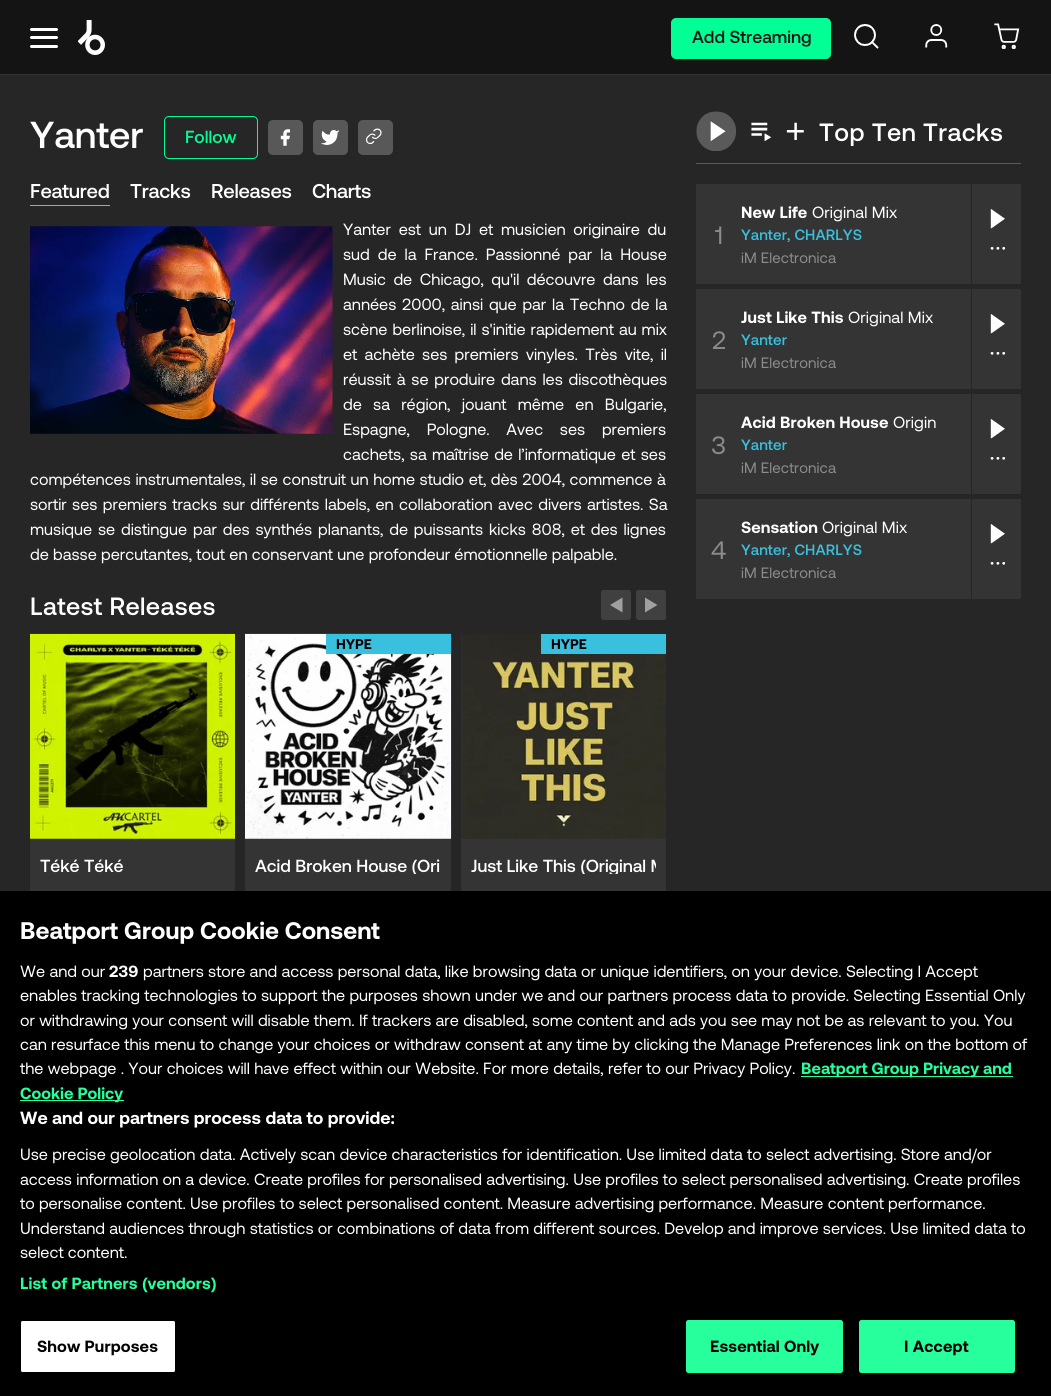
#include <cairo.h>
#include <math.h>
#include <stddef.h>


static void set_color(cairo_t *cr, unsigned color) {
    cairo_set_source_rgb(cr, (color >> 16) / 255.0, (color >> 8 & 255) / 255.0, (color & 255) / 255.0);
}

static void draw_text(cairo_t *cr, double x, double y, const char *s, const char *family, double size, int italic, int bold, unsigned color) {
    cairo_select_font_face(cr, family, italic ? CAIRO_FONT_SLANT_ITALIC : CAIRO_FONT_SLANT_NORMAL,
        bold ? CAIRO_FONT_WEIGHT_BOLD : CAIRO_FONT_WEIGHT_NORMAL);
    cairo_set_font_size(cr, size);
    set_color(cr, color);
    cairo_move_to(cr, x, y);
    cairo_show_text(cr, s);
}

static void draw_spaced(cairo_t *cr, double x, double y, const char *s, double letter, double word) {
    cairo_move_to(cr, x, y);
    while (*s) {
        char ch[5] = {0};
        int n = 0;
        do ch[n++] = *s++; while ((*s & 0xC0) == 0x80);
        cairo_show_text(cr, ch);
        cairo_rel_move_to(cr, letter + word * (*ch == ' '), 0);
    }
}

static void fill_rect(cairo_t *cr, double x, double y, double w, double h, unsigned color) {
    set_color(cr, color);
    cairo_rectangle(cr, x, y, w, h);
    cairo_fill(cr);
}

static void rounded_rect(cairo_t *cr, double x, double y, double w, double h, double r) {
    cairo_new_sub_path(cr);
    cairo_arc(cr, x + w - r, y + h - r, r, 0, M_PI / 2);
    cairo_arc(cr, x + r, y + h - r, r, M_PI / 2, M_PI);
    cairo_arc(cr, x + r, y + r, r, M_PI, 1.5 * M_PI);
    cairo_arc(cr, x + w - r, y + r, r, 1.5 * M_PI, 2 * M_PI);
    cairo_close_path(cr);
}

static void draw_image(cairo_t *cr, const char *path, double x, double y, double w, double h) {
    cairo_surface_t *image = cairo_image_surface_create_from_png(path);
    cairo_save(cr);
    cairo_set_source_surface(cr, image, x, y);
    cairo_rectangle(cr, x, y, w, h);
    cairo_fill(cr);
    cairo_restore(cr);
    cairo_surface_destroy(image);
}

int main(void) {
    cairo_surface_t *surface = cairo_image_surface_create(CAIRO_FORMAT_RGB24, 1051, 1396);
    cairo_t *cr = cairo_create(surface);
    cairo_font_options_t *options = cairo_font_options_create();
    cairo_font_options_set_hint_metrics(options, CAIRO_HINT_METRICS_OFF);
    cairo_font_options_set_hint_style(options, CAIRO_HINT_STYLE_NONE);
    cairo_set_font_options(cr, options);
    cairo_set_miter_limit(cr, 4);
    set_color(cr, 0x262626);
    cairo_paint(cr);
    fill_rect(cr, 0, 0, 1051, 74, 0x141414);
    fill_rect(cr, 0, 74, 1051, 1, 0x333333);
    set_color(cr, 0xFFFFFF);
    rounded_rect(cr, 30, 36, 28, 3, 1.5);
    cairo_fill(cr);
    rounded_rect(cr, 30, 28, 28, 3, 1.5);
    cairo_fill(cr);
    rounded_rect(cr, 30, 45, 28, 3, 1.5);
    cairo_fill(cr);
    draw_image(cr, "assets/img1.png", 78, 20, 27, 35);
    set_color(cr, 0x01FF95);
    rounded_rect(cr, 671, 18, 160, 41, 5);
    cairo_fill(cr);
    draw_text(cr, 692, 43, "Add Streaming", "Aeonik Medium", 17.5, 0, 0, 0x141414);
    draw_image(cr, "assets/img2.png", 854, 24, 25, 25);
    draw_image(cr, "assets/img3.png", 925, 24, 23, 24);
    draw_image(cr, "assets/img4.png", 994, 23, 26, 26);
    draw_text(cr, 30, 148, "Yanter", "Aeonik Medium", 37.5, 0, 0, 0xFFFFFF);
    rounded_rect(cr, 164.5, 116.5, 93, 42, 4.5);
    set_color(cr, 0x01FF95);
    cairo_set_line_width(cr, 1);
    cairo_stroke(cr);
    draw_text(cr, 185, 143, "Follow", "Aeonik Medium", 17.5, 0, 0, 0x01FF95);
    set_color(cr, 0x585858);
    rounded_rect(cr, 268, 120, 35, 35, 5);
    cairo_fill(cr);
    draw_image(cr, "assets/img5.png", 280, 129, 10, 17);
    rounded_rect(cr, 313, 120, 35, 35, 5);
    cairo_fill(cr);
    draw_image(cr, "assets/img6.png", 321, 130, 19, 15);
    rounded_rect(cr, 358, 120, 35, 35, 5);
    cairo_fill(cr);
    draw_image(cr, "assets/img7.png", 365, 128, 17, 16);
    fill_rect(cr, 30, 205, 80, 1, 0x01FF95);
    cairo_set_font_size(cr, 20);
    set_color(cr, 0xFFFFFF);
    draw_spaced(cr, 30, 198, "Featured", -0.25, 0);
    draw_spaced(cr, 130, 198, "Tracks", -0.25, 0);
    draw_spaced(cr, 211, 198, "Releases", -0.25, 0);
    draw_spaced(cr, 312, 198, "Charts", -0.25, 0);
    cairo_select_font_face(cr, "Aeonik", CAIRO_FONT_SLANT_NORMAL, CAIRO_FONT_WEIGHT_NORMAL);
    cairo_set_font_size(cr, 16.25);
    draw_spaced(cr, 343, 235, "Yanter est un DJ et musicien originaire du", 0, 3.5);
    draw_spaced(cr, 343, 260, "sud de la France. Passionné par la House", 0, 3.75);
    draw_spaced(cr, 343, 285, "Music de Chicago, qu'il découvre dans les", 0, 3.25);
    draw_spaced(cr, 343, 310, "années 2000, ainsi que par la Techno de la", 0, 1.5);
    draw_spaced(cr, 343, 335, "scène berlinoise, il s'initie rapidement au mix", 0, 0.75);
    draw_spaced(cr, 343, 360, "et achète ses premiers vinyles. Très vite, il", 0, 3);
    draw_spaced(cr, 343, 385, "réussit à se produire dans les discothèques", 0, 1.5);
    draw_spaced(cr, 343, 410, "de sa région, jouant même en Bulgarie,", 0, 7);
    draw_spaced(cr, 343, 435, "Espagne, Pologne. Avec ses premiers", 0, 12.5);
    draw_spaced(cr, 343, 460, "cachets, sa maîtrise de l’informatique et ses", 0, 1);
    draw_spaced(cr, 30, 485, "compétences instrumentales, il se construit un home studio et, dès 2004, commence à", 0, 0.3);
    draw_spaced(cr, 30, 510, "sortir ses premiers tracks sur différents labels, en collaboration avec divers artistes. Sa", 0, 1.1);
    draw_spaced(cr, 30, 535, "musique se distingue par des synthés planants, de puissants kicks 808, et des lignes", 0, 1.6);
    draw_text(cr, 30, 560, "de basse percutantes, tout en conservant une profondeur émotionnelle palpable.", "Aeonik", 16.25, 0, 0, 0xFFFFFF);
    draw_image(cr, "assets/img8.png", 30, 226, 303, 208);
    cairo_select_font_face(cr, "Aeonik Medium", CAIRO_FONT_SLANT_NORMAL, CAIRO_FONT_WEIGHT_NORMAL);
    cairo_set_font_size(cr, 25);
    draw_spaced(cr, 30, 615, "Latest Releases", 0.4, 0);
    set_color(cr, 0x404040);
    rounded_rect(cr, 601, 590, 30, 30, 2.5);
    cairo_fill(cr);
    draw_image(cr, "assets/img9.png", 610, 597, 13, 16);
    rounded_rect(cr, 636, 590, 30, 30, 2.5);
    cairo_fill(cr);
    draw_image(cr, "assets/img10.png", 645, 597, 13, 16);
    fill_rect(cr, 30, 838, 205, 53, 0x343434);
    draw_image(cr, "assets/img11.png", 30, 633, 205, 206);
    cairo_set_font_size(cr, 17.5);
    set_color(cr, 0xFFFFFF);
    draw_spaced(cr, 40, 872, "Téké Téké", -0.05, 0);
    fill_rect(cr, 245, 838, 206, 53, 0x343434);
    draw_image(cr, "assets/img12.png", 245, 633, 207, 206);
    fill_rect(cr, 326, 634, 125, 20, 0x39C0DE);
    draw_text(cr, 336, 649, "HYPE", "Aeonik", 14, 0, 1, 0x000000);
    cairo_save(cr);
    cairo_rectangle(cr, 255, 849, 186, 25);
    cairo_clip(cr);
    cairo_select_font_face(cr, "Aeonik Medium", CAIRO_FONT_SLANT_NORMAL, CAIRO_FONT_WEIGHT_NORMAL);
    cairo_set_font_size(cr, 17.5);
    set_color(cr, 0xFFFFFF);
    draw_spaced(cr, 255, 872, "Acid Broken House (Ori", -0.05, 0);
    cairo_restore(cr);
    fill_rect(cr, 461, 634, 205, 257, 0x343434);
    draw_image(cr, "assets/img13.png", 461, 634, 205, 205);
    fill_rect(cr, 541, 634, 125, 20, 0x39C0DE);
    draw_text(cr, 551, 649, "HYPE", "Aeonik", 14, 0, 1, 0x000000);
    cairo_save(cr);
    cairo_rectangle(cr, 471, 849, 185, 25);
    cairo_clip(cr);
    cairo_select_font_face(cr, "Aeonik Medium", CAIRO_FONT_SLANT_NORMAL, CAIRO_FONT_WEIGHT_NORMAL);
    cairo_set_font_size(cr, 17.5);
    set_color(cr, 0xFFFFFF);
    draw_spaced(cr, 471, 872, "Just Like This (Original M", -0.05, 0);
    cairo_restore(cr);
    draw_image(cr, "assets/img14.png", 696, 111, 40, 40);
    draw_image(cr, "assets/img15.png", 751, 122, 20, 19);
    draw_image(cr, "assets/img16.png", 786, 122, 18, 18);
    cairo_select_font_face(cr, "Aeonik Medium", CAIRO_FONT_SLANT_NORMAL, CAIRO_FONT_WEIGHT_NORMAL);
    cairo_set_font_size(cr, 25);
    set_color(cr, 0xFFFFFF);
    draw_spaced(cr, 819, 141, "Top Ten Tracks", 0.4, 0);
    fill_rect(cr, 696, 163, 325, 1, 0x5A5A5A);
    fill_rect(cr, 696, 184, 325, 100, 0x343434);
    draw_text(cr, 715, 244, "1", "Aeonik", 25, 0, 0, 0x8C8C8C);
    cairo_select_font_face(cr, "Aeonik", CAIRO_FONT_SLANT_NORMAL, CAIRO_FONT_WEIGHT_BOLD);
    cairo_set_font_size(cr, 16.25);
    set_color(cr, 0xFFFFFF);
    draw_spaced(cr, 741, 218, "New Life", 0.1, 0);
    cairo_select_font_face(cr, "Aeonik", CAIRO_FONT_SLANT_NORMAL, CAIRO_FONT_WEIGHT_NORMAL);
    draw_spaced(cr, 812, 218, "Original Mix", 0.1, 0);
    cairo_select_font_face(cr, "Aeonik Medium", CAIRO_FONT_SLANT_NORMAL, CAIRO_FONT_WEIGHT_NORMAL);
    cairo_set_font_size(cr, 15);
    set_color(cr, 0x39C0DE);
    draw_spaced(cr, 741, 240, "Yanter, CHARLYS", 0.1, 0);
    cairo_select_font_face(cr, "Aeonik", CAIRO_FONT_SLANT_NORMAL, CAIRO_FONT_WEIGHT_NORMAL);
    set_color(cr, 0x8C8C8C);
    draw_spaced(cr, 741, 263, "iM Electronica", 0.1, 0);
    fill_rect(cr, 971, 184, 1, 100, 0x262626);
    draw_image(cr, "assets/img17.png", 990, 209, 15, 20);
    draw_image(cr, "assets/img18.png", 990, 247, 16, 3);
    fill_rect(cr, 696, 289, 325, 100, 0x343434);
    draw_text(cr, 712, 349, "2", "Aeonik", 25, 0, 0, 0x8C8C8C);
    cairo_select_font_face(cr, "Aeonik", CAIRO_FONT_SLANT_NORMAL, CAIRO_FONT_WEIGHT_BOLD);
    cairo_set_font_size(cr, 16.25);
    set_color(cr, 0xFFFFFF);
    draw_spaced(cr, 741, 323, "Just Like This", 0.1, 0);
    cairo_select_font_face(cr, "Aeonik", CAIRO_FONT_SLANT_NORMAL, CAIRO_FONT_WEIGHT_NORMAL);
    draw_spaced(cr, 848, 323, "Original Mix", 0.1, 0);
    cairo_select_font_face(cr, "Aeonik Medium", CAIRO_FONT_SLANT_NORMAL, CAIRO_FONT_WEIGHT_NORMAL);
    cairo_set_font_size(cr, 15);
    set_color(cr, 0x39C0DE);
    draw_spaced(cr, 741, 345, "Yanter", 0.1, 0);
    cairo_select_font_face(cr, "Aeonik", CAIRO_FONT_SLANT_NORMAL, CAIRO_FONT_WEIGHT_NORMAL);
    set_color(cr, 0x8C8C8C);
    draw_spaced(cr, 741, 368, "iM Electronica", 0.1, 0);
    fill_rect(cr, 971, 289, 1, 100, 0x262626);
    draw_image(cr, "assets/img17.png", 990, 314, 15, 20);
    draw_image(cr, "assets/img18.png", 990, 352, 16, 3);
    fill_rect(cr, 696, 394, 325, 100, 0x343434);
    draw_text(cr, 711, 454, "3", "Aeonik", 25, 0, 0, 0x8C8C8C);
    cairo_select_font_face(cr, "Aeonik", CAIRO_FONT_SLANT_NORMAL, CAIRO_FONT_WEIGHT_BOLD);
    cairo_set_font_size(cr, 16.25);
    set_color(cr, 0xFFFFFF);
    draw_spaced(cr, 741, 428, "Acid Broken House", 0.1, 0);
    cairo_select_font_face(cr, "Aeonik", CAIRO_FONT_SLANT_NORMAL, CAIRO_FONT_WEIGHT_NORMAL);
    draw_spaced(cr, 893, 428, "Origin", 0.1, 0);
    cairo_select_font_face(cr, "Aeonik Medium", CAIRO_FONT_SLANT_NORMAL, CAIRO_FONT_WEIGHT_NORMAL);
    cairo_set_font_size(cr, 15);
    set_color(cr, 0x39C0DE);
    draw_spaced(cr, 741, 450, "Yanter", 0.1, 0);
    cairo_select_font_face(cr, "Aeonik", CAIRO_FONT_SLANT_NORMAL, CAIRO_FONT_WEIGHT_NORMAL);
    set_color(cr, 0x8C8C8C);
    draw_spaced(cr, 741, 473, "iM Electronica", 0.1, 0);
    fill_rect(cr, 971, 394, 1, 100, 0x262626);
    draw_image(cr, "assets/img17.png", 990, 419, 15, 20);
    draw_image(cr, "assets/img18.png", 990, 457, 16, 3);
    fill_rect(cr, 696, 499, 325, 100, 0x343434);
    draw_text(cr, 711, 559, "4", "Aeonik", 25, 0, 0, 0x8C8C8C);
    cairo_select_font_face(cr, "Aeonik", CAIRO_FONT_SLANT_NORMAL, CAIRO_FONT_WEIGHT_BOLD);
    cairo_set_font_size(cr, 16.25);
    set_color(cr, 0xFFFFFF);
    draw_spaced(cr, 741, 533, "Sensation", 0.1, 0);
    cairo_select_font_face(cr, "Aeonik", CAIRO_FONT_SLANT_NORMAL, CAIRO_FONT_WEIGHT_NORMAL);
    draw_spaced(cr, 822, 533, "Original Mix", 0.1, 0);
    cairo_select_font_face(cr, "Aeonik Medium", CAIRO_FONT_SLANT_NORMAL, CAIRO_FONT_WEIGHT_NORMAL);
    cairo_set_font_size(cr, 15);
    set_color(cr, 0x39C0DE);
    draw_spaced(cr, 741, 555, "Yanter, CHARLYS", 0.1, 0);
    cairo_select_font_face(cr, "Aeonik", CAIRO_FONT_SLANT_NORMAL, CAIRO_FONT_WEIGHT_NORMAL);
    set_color(cr, 0x8C8C8C);
    draw_spaced(cr, 741, 578, "iM Electronica", 0.1, 0);
    fill_rect(cr, 971, 499, 1, 100, 0x262626);
    draw_image(cr, "assets/img17.png", 990, 524, 15, 20);
    draw_image(cr, "assets/img18.png", 990, 562, 16, 3);
    fill_rect(cr, 0, 891, 1051, 505, 0x000000);
    draw_text(cr, 20, 939, "Beatport Group Cookie Consent", "Aeonik", 24, 0, 1, 0xFFFFFF);
    draw_text(cr, 20, 977, "We and our", "Aeonik", 16.25, 0, 0, 0xFFFFFF);
    draw_text(cr, 109, 977, "239", "Aeonik", 16.25, 0, 1, 0xFFFFFF);
    draw_text(cr, 143, 977, "partners store and access personal data, like browsing data or unique identifiers, on your device. Selecting I Accept", "Aeonik", 16.25, 0, 0, 0xFFFFFF);
    draw_text(cr, 20, 1001, "enables tracking technologies to support the purposes shown under we and our partners process data to provide. Selecting Essential Only", "Aeonik", 16.25, 0, 0, 0xFFFFFF);
    draw_text(cr, 20, 1026, "or withdrawing your consent will disable them. If trackers are disabled, some content and ads you see may not be as relevant to you. You", "Aeonik", 16.25, 0, 0, 0xFFFFFF);
    draw_text(cr, 20, 1050, "can resurface this menu to change your choices or withdraw consent at any time by clicking the Manage Preferences link on the bottom of", "Aeonik", 16.25, 0, 0, 0xFFFFFF);
    draw_text(cr, 20, 1074, "the webpage . Your choices will have effect within our Website. For more details, refer to our Privacy Policy.", "Aeonik", 16.25, 0, 0, 0xFFFFFF);
    fill_rect(cr, 801, 1076, 212, 1, 0x27FF9C);
    draw_text(cr, 801, 1074, "Beatport Group Privacy and", "Aeonik", 16.25, 0, 1, 0x27FF9C);
    fill_rect(cr, 20, 1100, 104, 1, 0x27FF9C);
    draw_text(cr, 20, 1099, "Cookie Policy", "Aeonik", 16.25, 0, 1, 0x27FF9C);
    draw_text(cr, 20, 1124, "We and our partners process data to provide:", "Aeonik", 17.6, 0, 1, 0xFFFFFF);
    draw_text(cr, 20, 1160, "Use precise geolocation data. Actively scan device characteristics for identification. Use limited data to select advertising. Store and/or", "Aeonik", 16.25, 0, 0, 0xFFFFFF);
    draw_text(cr, 20, 1185, "access information on a device. Create profiles for personalised advertising. Use profiles to select personalised advertising. Create profiles", "Aeonik", 16.25, 0, 0, 0xFFFFFF);
    draw_text(cr, 20, 1209, "to personalise content. Use profiles to select personalised content. Measure advertising performance. Measure content performance.", "Aeonik", 16.25, 0, 0, 0xFFFFFF);
    draw_text(cr, 20, 1234, "Understand audiences through statistics or combinations of data from different sources. Develop and improve services. Use limited data to", "Aeonik", 16.25, 0, 0, 0xFFFFFF);
    draw_text(cr, 20, 1258, "select content.", "Aeonik", 16.25, 0, 0, 0xFFFFFF);
    cairo_select_font_face(cr, "Aeonik", CAIRO_FONT_SLANT_NORMAL, CAIRO_FONT_WEIGHT_BOLD);
    set_color(cr, 0x27FF9C);
    draw_spaced(cr, 20, 1289, "List of Partners (vendors)", 0.15, 0);
    set_color(cr, 0xFFFFFF);
    rounded_rect(cr, 20.5, 1320.5, 155, 52, 2);
    cairo_fill_preserve(cr);
    set_color(cr, 0x000000);
    cairo_stroke(cr);
    draw_spaced(cr, 37, 1352, "Show Purposes", 0.15, 0);
    set_color(cr, 0x27FF9C);
    rounded_rect(cr, 686.5, 1320.5, 156, 52, 2);
    cairo_fill_preserve(cr);
    cairo_stroke(cr);
    set_color(cr, 0x000000);
    draw_spaced(cr, 710, 1352, "Essential Only", 0.15, 0);
    set_color(cr, 0x27FF9C);
    rounded_rect(cr, 859.5, 1320.5, 155, 52, 2);
    cairo_fill_preserve(cr);
    cairo_stroke(cr);
    set_color(cr, 0x000000);
    draw_spaced(cr, 904, 1352, "I Accept", 0.15, 0);
    cairo_surface_write_to_png(surface, "output.png");
    cairo_font_options_destroy(options);
    cairo_destroy(cr);
    cairo_surface_destroy(surface);
    return 0;
}
